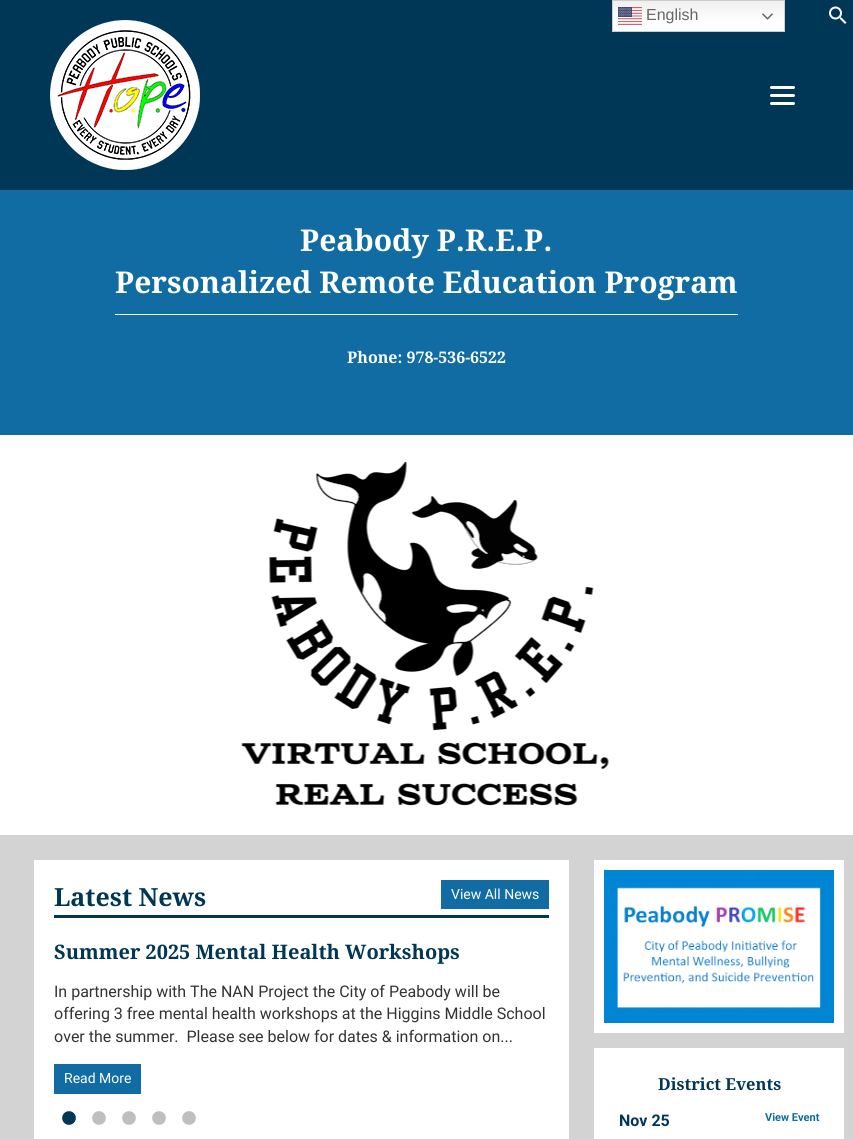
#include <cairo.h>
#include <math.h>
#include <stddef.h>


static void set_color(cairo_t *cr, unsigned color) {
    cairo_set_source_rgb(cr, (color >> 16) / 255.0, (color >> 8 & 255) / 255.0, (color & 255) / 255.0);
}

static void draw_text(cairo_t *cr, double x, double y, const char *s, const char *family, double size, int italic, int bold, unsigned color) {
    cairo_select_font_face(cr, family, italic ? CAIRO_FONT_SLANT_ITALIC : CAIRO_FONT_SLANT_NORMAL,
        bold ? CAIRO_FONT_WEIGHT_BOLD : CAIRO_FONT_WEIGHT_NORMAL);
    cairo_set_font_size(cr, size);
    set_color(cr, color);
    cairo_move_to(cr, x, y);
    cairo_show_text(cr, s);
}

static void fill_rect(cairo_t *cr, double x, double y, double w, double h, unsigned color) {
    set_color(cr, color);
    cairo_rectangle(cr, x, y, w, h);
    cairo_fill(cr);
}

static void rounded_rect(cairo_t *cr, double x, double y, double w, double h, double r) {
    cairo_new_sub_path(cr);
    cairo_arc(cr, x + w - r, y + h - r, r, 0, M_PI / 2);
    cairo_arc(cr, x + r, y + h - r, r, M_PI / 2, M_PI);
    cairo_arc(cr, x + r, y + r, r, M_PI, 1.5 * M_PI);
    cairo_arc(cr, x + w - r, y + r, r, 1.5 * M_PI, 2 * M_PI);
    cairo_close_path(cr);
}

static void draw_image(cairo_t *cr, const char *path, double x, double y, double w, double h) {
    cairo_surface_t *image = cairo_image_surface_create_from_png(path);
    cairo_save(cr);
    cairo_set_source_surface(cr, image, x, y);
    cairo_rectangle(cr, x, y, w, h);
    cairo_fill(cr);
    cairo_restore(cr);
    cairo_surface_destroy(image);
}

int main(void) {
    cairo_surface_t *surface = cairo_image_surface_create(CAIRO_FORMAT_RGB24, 853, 1139);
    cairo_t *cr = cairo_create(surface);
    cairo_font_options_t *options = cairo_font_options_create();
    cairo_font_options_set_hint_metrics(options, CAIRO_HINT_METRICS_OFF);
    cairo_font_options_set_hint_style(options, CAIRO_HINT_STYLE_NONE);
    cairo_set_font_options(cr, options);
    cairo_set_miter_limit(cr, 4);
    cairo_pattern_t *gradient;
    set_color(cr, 0x003656);
    cairo_paint(cr);
    gradient = cairo_pattern_create_linear(699, 0, 699, 32);
    cairo_pattern_add_color_stop_rgba(gradient, 0, 0.937, 0.937, 0.937, 1);
    cairo_pattern_add_color_stop_rgba(gradient, 0.7, 1, 1, 1, 1);
    cairo_set_source(cr, gradient);
    cairo_pattern_destroy(gradient);
    cairo_rectangle(cr, 613, 1, 171, 30);
    cairo_fill(cr);
    cairo_rectangle(cr, 612.5, 0.5, 172, 31);
    set_color(cr, 0xCCCCCC);
    cairo_set_line_width(cr, 1);
    cairo_stroke(cr);
    draw_image(cr, "assets/img1.png", 618, 7, 24, 18);
    draw_text(cr, 646, 20, "English", "Liberation Sans", 16, 0, 0, 0x666666);
    draw_image(cr, "assets/img2.png", 762, 13, 11, 7);
    draw_image(cr, "assets/img3.png", 829, 6, 18, 18);
    fill_rect(cr, 0, 190, 853, 245, 0x106CA3);
    draw_image(cr, "assets/img4.png", 50, 20, 150, 150);
    set_color(cr, 0xFFFFFF);
    rounded_rect(cr, 770, 94, 25, 3, 1.5);
    cairo_fill(cr);
    rounded_rect(cr, 770, 86, 25, 3, 1.5);
    cairo_fill(cr);
    rounded_rect(cr, 770, 102, 25, 3, 1.5);
    cairo_fill(cr);
    fill_rect(cr, 0, 835, 853, 304, 0xD3D3D3);
    fill_rect(cr, 115, 314, 623, 1, 0xFFFFFF);
    draw_text(cr, 300, 251, "Peabody P.R.E.P.", "Droid Serif", 30, 0, 1, 0xFFFFFF);
    draw_text(cr, 115, 293, "Personalized Remote Education Program", "Droid Serif", 30, 0, 1, 0xFFFFFF);
    draw_text(cr, 347, 363, "Phone: 978-536-6522", "Droid Serif", 16, 0, 1, 0xFFFFFF);
    draw_image(cr, "assets/img5.png", 0, 435, 853, 400);
    fill_rect(cr, 34, 860, 535, 279, 0xFFFFFF);
    fill_rect(cr, 54, 915, 495, 3, 0x003656);
    draw_text(cr, 54, 906, "Latest News", "Droid Serif", 25, 0, 1, 0x003656);
    fill_rect(cr, 441, 880, 108, 29, 0x106CA3);
    draw_text(cr, 451, 899, "View All News", "Roboto", 14, 0, 0, 0xFFFFFF);
    draw_text(cr, 54, 959, "Summer 2025 Mental Health Workshops", "Droid Serif", 20, 0, 1, 0x003656);
    draw_text(cr, 54, 997, "In partnership with The NAN Project the City of Peabody will be", "Roboto", 16, 0, 0, 0x333333);
    draw_text(cr, 54, 1019, "offering 3 free mental health workshops at the Higgins Middle School", "Roboto", 16, 0, 0, 0x333333);
    draw_text(cr, 54, 1042, "over the summer.  Please see below for dates & information on...", "Roboto", 16, 0, 0, 0x333333);
    fill_rect(cr, 54, 1064, 87, 30, 0x106CA3);
    draw_text(cr, 64, 1083, "Read More", "Roboto", 14, 0, 0, 0xFFFFFF);
    draw_image(cr, "assets/img6.png", 62, 1111, 14, 14);
    draw_image(cr, "assets/img7.png", 92, 1111, 14, 14);
    draw_image(cr, "assets/img7.png", 122, 1111, 14, 14);
    draw_image(cr, "assets/img7.png", 152, 1111, 14, 14);
    draw_image(cr, "assets/img7.png", 182, 1111, 14, 14);
    fill_rect(cr, 594, 860, 250, 173, 0xFFFFFF);
    draw_image(cr, "assets/img8.png", 604, 870, 230, 153);
    fill_rect(cr, 594, 1048, 250, 91, 0xFFFFFF);
    draw_text(cr, 658, 1090, "District Events", "Droid Serif", 16.5, 0, 1, 0x003656);
    draw_text(cr, 619, 1126, "Nov 25", "Roboto", 16, 0, 1, 0x003656);
    draw_text(cr, 765, 1121, "View Event", "Roboto", 11, 0, 1, 0x106CA3);
    cairo_surface_write_to_png(surface, "output.png");
    cairo_font_options_destroy(options);
    cairo_destroy(cr);
    cairo_surface_destroy(surface);
    return 0;
}
